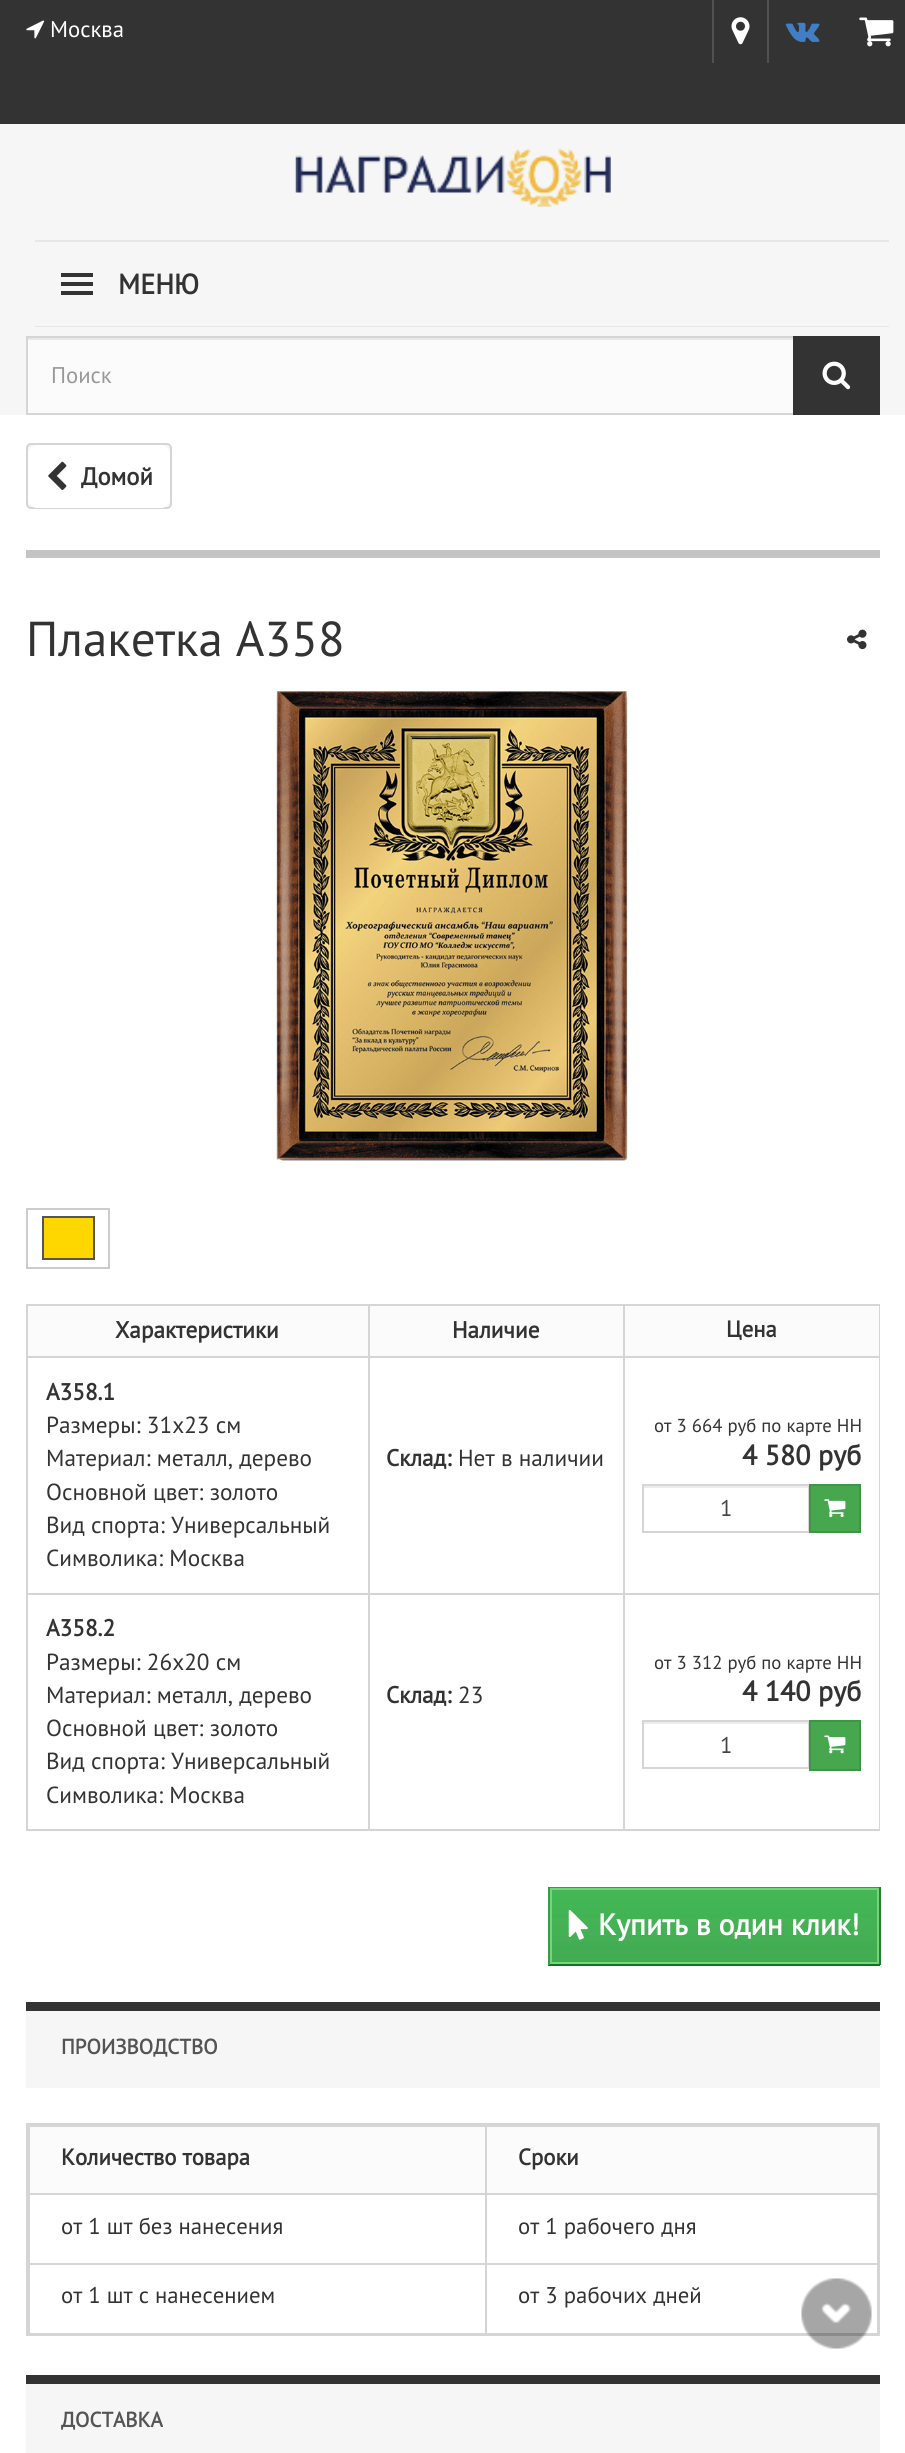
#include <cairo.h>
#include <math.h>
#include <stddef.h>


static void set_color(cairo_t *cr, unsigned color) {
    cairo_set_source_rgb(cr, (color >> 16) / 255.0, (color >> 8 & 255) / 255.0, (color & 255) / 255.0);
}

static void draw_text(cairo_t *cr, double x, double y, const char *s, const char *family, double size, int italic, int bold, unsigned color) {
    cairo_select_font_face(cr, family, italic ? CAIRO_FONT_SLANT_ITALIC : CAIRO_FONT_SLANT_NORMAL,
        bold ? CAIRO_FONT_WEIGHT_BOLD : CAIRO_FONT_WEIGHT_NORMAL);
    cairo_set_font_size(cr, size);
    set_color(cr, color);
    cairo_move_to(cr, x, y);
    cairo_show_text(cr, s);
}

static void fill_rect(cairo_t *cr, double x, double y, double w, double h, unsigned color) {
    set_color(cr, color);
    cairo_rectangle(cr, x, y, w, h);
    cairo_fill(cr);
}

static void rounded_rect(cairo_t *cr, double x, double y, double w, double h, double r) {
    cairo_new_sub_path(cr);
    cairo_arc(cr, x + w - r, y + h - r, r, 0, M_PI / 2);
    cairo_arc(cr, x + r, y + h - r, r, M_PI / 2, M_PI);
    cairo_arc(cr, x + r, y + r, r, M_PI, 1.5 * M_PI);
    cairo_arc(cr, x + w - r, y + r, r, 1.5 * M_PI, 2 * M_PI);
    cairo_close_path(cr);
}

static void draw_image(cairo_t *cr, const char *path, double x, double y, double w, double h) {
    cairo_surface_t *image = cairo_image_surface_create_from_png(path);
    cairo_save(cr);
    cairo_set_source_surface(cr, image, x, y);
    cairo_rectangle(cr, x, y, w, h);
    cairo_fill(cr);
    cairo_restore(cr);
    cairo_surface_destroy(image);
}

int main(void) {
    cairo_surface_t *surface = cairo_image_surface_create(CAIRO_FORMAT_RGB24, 905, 2453);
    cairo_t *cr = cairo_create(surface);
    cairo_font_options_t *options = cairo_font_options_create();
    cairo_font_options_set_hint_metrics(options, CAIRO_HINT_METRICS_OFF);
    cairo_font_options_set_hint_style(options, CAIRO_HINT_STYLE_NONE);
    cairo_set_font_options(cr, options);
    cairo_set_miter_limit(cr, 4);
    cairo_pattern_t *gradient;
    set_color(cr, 0xFFFFFF);
    cairo_paint(cr);
    fill_rect(cr, 0, 0, 905, 124, 0x333333);
    draw_image(cr, "assets/img1.png", 26, 20, 19, 19);
    draw_text(cr, 50, 37, "Москва", "PT Sans", 22.75, 0, 0, 0xFFFFFF);
    fill_rect(cr, 712, 0, 2, 63, 0x515151);
    draw_image(cr, "assets/img2.png", 731, 17, 19, 28);
    fill_rect(cr, 767, 0, 2, 63, 0x515151);
    draw_image(cr, "assets/img3.png", 785, 22, 35, 20);
    draw_image(cr, "assets/img4.png", 859, 17, 35, 30);
    fill_rect(cr, 0, 124, 905, 291, 0xF6F6F6);
    draw_image(cr, "assets/img5.png", 295, 148, 316, 59);
    fill_rect(cr, 35, 240, 854, 2, 0xE7E7E7);
    fill_rect(cr, 35, 326, 854, 1, 0xE7E7E7);
    fill_rect(cr, 61, 273, 32, 4, 0x333333);
    fill_rect(cr, 61, 282, 32, 4, 0x333333);
    fill_rect(cr, 61, 291, 32, 4, 0x333333);
    draw_text(cr, 118, 294, "МЕНЮ", "PT Sans", 28, 0, 1, 0x333333);
    fill_rect(cr, 28, 340, 765, 73, 0xFBFBFB);
    fill_rect(cr, 28, 338, 765, 2, 0xE8E8E8);
    cairo_rectangle(cr, 27, 337, 852, 77);
    set_color(cr, 0xD6D4D4);
    cairo_stroke(cr);
    draw_text(cr, 51, 383, "Поиск", "PT Sans", 22.75, 0, 0, 0x999999);
    fill_rect(cr, 793, 336, 87, 79, 0x333333);
    draw_image(cr, "assets/img6.png", 822, 361, 29, 29);
    set_color(cr, 0xF6F6F6);
    rounded_rect(cr, 27, 444, 144, 64, 4);
    cairo_fill_preserve(cr);
    set_color(cr, 0xD6D4D4);
    cairo_stroke(cr);
    set_color(cr, 0xFFFFFF);
    rounded_rect(cr, 28, 445, 142, 63, 9);
    cairo_fill(cr);
    draw_image(cr, "assets/img7.png", 48, 461, 19, 29);
    draw_text(cr, 81, 485, "Домой", "PT Sans", 24.5, 0, 1, 0x333333);
    fill_rect(cr, 26, 550, 854, 8, 0xC4C4C4);
    draw_text(cr, 26, 656, "Плакетка A358", "PT Sans", 49, 0, 0, 0x333333);
    draw_image(cr, "assets/img8.png", 847, 629, 20, 21);
    draw_image(cr, "assets/img9.png", 276, 691, 352, 470);
    cairo_rectangle(cr, 27, 1209, 82, 59);
    set_color(cr, 0xCCCCCC);
    cairo_stroke(cr);
    cairo_rectangle(cr, 43, 1217, 51, 42);
    set_color(cr, 0x555555);
    cairo_stroke(cr);
    fill_rect(cr, 44, 1218, 49, 40, 0xFFD700);
    fill_rect(cr, 26, 1304, 854, 2, 0xD6D4D4);
    fill_rect(cr, 879, 1304, 1, 527, 0xD6D4D4);
    fill_rect(cr, 26, 1829, 854, 2, 0xD6D4D4);
    fill_rect(cr, 26, 1304, 2, 527, 0xD6D4D4);
    fill_rect(cr, 28, 1306, 340, 50, 0xFBFBFB);
    draw_text(cr, 115, 1338, "Характеристики", "PT Sans", 23.25, 0, 1, 0x333333);
    fill_rect(cr, 370, 1306, 253, 50, 0xFBFBFB);
    fill_rect(cr, 623, 1356, 257, 2, 0xD6D4D4);
    fill_rect(cr, 623, 1593, 257, 2, 0xD6D4D4);
    fill_rect(cr, 623, 1593, 2, 238, 0xD6D4D4);
    fill_rect(cr, 368, 1593, 257, 2, 0xD6D4D4);
    fill_rect(cr, 623, 1356, 2, 238, 0xD6D4D4);
    fill_rect(cr, 368, 1356, 257, 2, 0xD6D4D4);
    fill_rect(cr, 368, 1593, 2, 238, 0xD6D4D4);
    fill_rect(cr, 26, 1593, 343, 2, 0xD6D4D4);
    fill_rect(cr, 368, 1356, 2, 238, 0xD6D4D4);
    fill_rect(cr, 26, 1356, 343, 2, 0xD6D4D4);
    fill_rect(cr, 368, 1304, 2, 54, 0xD6D4D4);
    draw_text(cr, 452, 1338, "Наличие", "PT Sans", 23.25, 0, 1, 0x333333);
    fill_rect(cr, 625, 1306, 254, 50, 0xFBFBFB);
    fill_rect(cr, 623, 1304, 2, 54, 0xD6D4D4);
    draw_text(cr, 726, 1337, "Цена", "PT Sans", 22.75, 0, 1, 0x333333);
    draw_text(cr, 46, 1400, "A358.1", "PT Sans", 23.25, 0, 1, 0x333333);
    draw_text(cr, 46, 1433, "Размеры: 31х23 см", "PT Sans", 23.25, 0, 0, 0x333333);
    draw_text(cr, 46, 1466, "Материал: металл, дерево", "PT Sans", 23.25, 0, 0, 0x333333);
    draw_text(cr, 46, 1500, "Основной цвет: золото", "PT Sans", 23.25, 0, 0, 0x333333);
    draw_text(cr, 46, 1533, "Вид спорта: Универсальный", "PT Sans", 23.25, 0, 0, 0x333333);
    draw_text(cr, 46, 1566, "Символика: Москва", "PT Sans", 23.25, 0, 0, 0x333333);
    draw_text(cr, 386, 1466, "Склад:", "PT Sans", 23.25, 0, 1, 0x333333);
    draw_text(cr, 458, 1466, "Нет в наличии", "PT Sans", 23.25, 0, 0, 0x333333);
    draw_text(cr, 654, 1432, "от 3 664 руб по карте НН", "PT Sans", 18.75, 0, 0, 0x333333);
    draw_text(cr, 742, 1465, "4 580 руб", "PT Sans", 28, 0, 1, 0x333333);
    fill_rect(cr, 644, 1486, 165, 2, 0xECECEC);
    cairo_rectangle(cr, 643, 1485, 166, 47);
    set_color(cr, 0xD6D4D4);
    cairo_stroke(cr);
    draw_text(cr, 720, 1516, "1", "PT Sans", 22.75, 0, 0, 0x444444);
    set_color(cr, 0x46A74E);
    cairo_rectangle(cr, 810, 1485, 50, 47);
    cairo_fill_preserve(cr);
    set_color(cr, 0x3E9546);
    cairo_stroke(cr);
    draw_image(cr, "assets/img10.png", 824, 1499, 22, 19);
    draw_text(cr, 46, 1636, "A358.2", "PT Sans", 23.25, 0, 1, 0x333333);
    draw_text(cr, 46, 1670, "Размеры: 26х20 см", "PT Sans", 23.25, 0, 0, 0x333333);
    draw_text(cr, 46, 1703, "Материал: металл, дерево", "PT Sans", 23.25, 0, 0, 0x333333);
    draw_text(cr, 46, 1736, "Основной цвет: золото", "PT Sans", 23.25, 0, 0, 0x333333);
    draw_text(cr, 46, 1769, "Вид спорта: Универсальный", "PT Sans", 23.25, 0, 0, 0x333333);
    draw_text(cr, 46, 1803, "Символика: Москва", "PT Sans", 23.25, 0, 0, 0x333333);
    draw_text(cr, 386, 1703, "Склад:", "PT Sans", 23.25, 0, 1, 0x333333);
    draw_text(cr, 458, 1703, "23", "PT Sans", 23.25, 0, 0, 0x333333);
    draw_text(cr, 654, 1669, "от 3 312 руб по карте НН", "PT Sans", 18.75, 0, 0, 0x333333);
    draw_text(cr, 742, 1701, "4 140 руб", "PT Sans", 28, 0, 1, 0x333333);
    fill_rect(cr, 644, 1722, 165, 2, 0xECECEC);
    cairo_rectangle(cr, 643, 1721, 166, 47);
    set_color(cr, 0xD6D4D4);
    cairo_stroke(cr);
    draw_text(cr, 720, 1753, "1", "PT Sans", 22.75, 0, 0, 0x444444);
    set_color(cr, 0x46A74E);
    cairo_rectangle(cr, 810, 1721, 50, 49);
    cairo_fill_preserve(cr);
    set_color(cr, 0x3E9546);
    cairo_stroke(cr);
    draw_image(cr, "assets/img11.png", 824, 1735, 22, 19);
    gradient = cairo_pattern_create_linear(714, 1888, 714, 1964);
    cairo_pattern_add_color_stop_rgba(gradient, 0, 0.263, 0.718, 0.329, 1);
    cairo_pattern_add_color_stop_rgba(gradient, 0.02, 0.255, 0.718, 0.341, 1);
    cairo_pattern_add_color_stop_rgba(gradient, 0.04, 0.255, 0.722, 0.329, 1);
    cairo_pattern_add_color_stop_rgba(gradient, 0.06, 0.263, 0.718, 0.337, 1);
    cairo_pattern_add_color_stop_rgba(gradient, 0.38, 0.255, 0.702, 0.329, 1);
    cairo_pattern_add_color_stop_rgba(gradient, 0.4, 0.267, 0.702, 0.333, 1);
    cairo_pattern_add_color_stop_rgba(gradient, 0.66, 0.271, 0.686, 0.333, 1);
    cairo_pattern_add_color_stop_rgba(gradient, 0.74, 0.255, 0.682, 0.325, 1);
    cairo_pattern_add_color_stop_rgba(gradient, 0.91, 0.259, 0.675, 0.322, 1);
    cairo_pattern_add_color_stop_rgba(gradient, 0.94, 0.255, 0.682, 0.333, 1);
    cairo_pattern_add_color_stop_rgba(gradient, 0.96, 0.263, 0.671, 0.329, 1);
    cairo_pattern_add_color_stop_rgba(gradient, 1, 0.259, 0.675, 0.322, 1);
    cairo_set_source(cr, gradient);
    cairo_pattern_destroy(gradient);
    cairo_rectangle(cr, 552, 1890, 325, 72);
    cairo_fill(cr);
    fill_rect(cr, 548, 1887, 332, 1, 0x399A49);
    fill_rect(cr, 879, 1887, 2, 78, 0x247F32);
    fill_rect(cr, 548, 1964, 332, 2, 0x1A6D27);
    fill_rect(cr, 548, 1887, 2, 78, 0x399A49);
    cairo_rectangle(cr, 551, 1889, 327, 74);
    set_color(cr, 0x74D578);
    cairo_stroke(cr);
    draw_image(cr, "assets/img12.png", 568, 1910, 20, 30);
    draw_text(cr, 598, 1935, "Купить в один клик!", "PT Sans", 29.75, 0, 1, 0xFFFFFF);
    fill_rect(cr, 26, 2011, 854, 77, 0xF6F6F6);
    fill_rect(cr, 26, 2002, 854, 9, 0x333333);
    draw_text(cr, 61, 2054, "ПРОИЗВОДСТВО", "PT Sans", 21, 0, 1, 0x555454);
    cairo_rectangle(cr, 27, 2124, 852, 211);
    set_color(cr, 0xD6D4D4);
    cairo_stroke(cr);
    fill_rect(cr, 28, 2125, 851, 2, 0xD6D4D4);
    fill_rect(cr, 877, 2125, 1, 210, 0xD6D4D4);
    fill_rect(cr, 28, 2333, 851, 1, 0xD6D4D4);
    fill_rect(cr, 28, 2125, 2, 210, 0xD6D4D4);
    fill_rect(cr, 30, 2127, 455, 66, 0xFBFBFB);
    draw_text(cr, 61, 2165, "Количество товара", "PT Sans", 22.75, 0, 1, 0x333333);
    fill_rect(cr, 487, 2127, 390, 66, 0xFBFBFB);
    fill_rect(cr, 485, 2193, 394, 2, 0xD6D4D4);
    fill_rect(cr, 485, 2263, 394, 2, 0xD6D4D4);
    fill_rect(cr, 485, 2263, 2, 72, 0xD6D4D4);
    fill_rect(cr, 28, 2263, 459, 2, 0xD6D4D4);
    fill_rect(cr, 485, 2193, 2, 72, 0xD6D4D4);
    fill_rect(cr, 28, 2193, 459, 2, 0xD6D4D4);
    fill_rect(cr, 485, 2125, 2, 70, 0xD6D4D4);
    draw_text(cr, 518, 2165, "Сроки", "PT Sans", 22.75, 0, 1, 0x333333);
    draw_text(cr, 61, 2234, "от 1 шт без нанесения", "PT Sans", 22.75, 0, 0, 0x333333);
    draw_text(cr, 518, 2234, "от 1 рабочего дня", "PT Sans", 22.75, 0, 0, 0x333333);
    draw_text(cr, 61, 2303, "от 1 шт с нанесением", "PT Sans", 22.75, 0, 0, 0x333333);
    draw_text(cr, 518, 2303, "от 3 рабочих дней", "PT Sans", 22.75, 0, 0, 0x333333);
    fill_rect(cr, 26, 2384, 854, 69, 0xF6F6F6);
    fill_rect(cr, 26, 2375, 854, 9, 0x333333);
    draw_text(cr, 61, 2427, "ДОСТАВКА", "PT Sans", 21, 0, 1, 0x555454);
    draw_image(cr, "assets/img13.png", 801, 2278, 71, 71);
    cairo_surface_write_to_png(surface, "output.png");
    cairo_font_options_destroy(options);
    cairo_destroy(cr);
    cairo_surface_destroy(surface);
    return 0;
}
